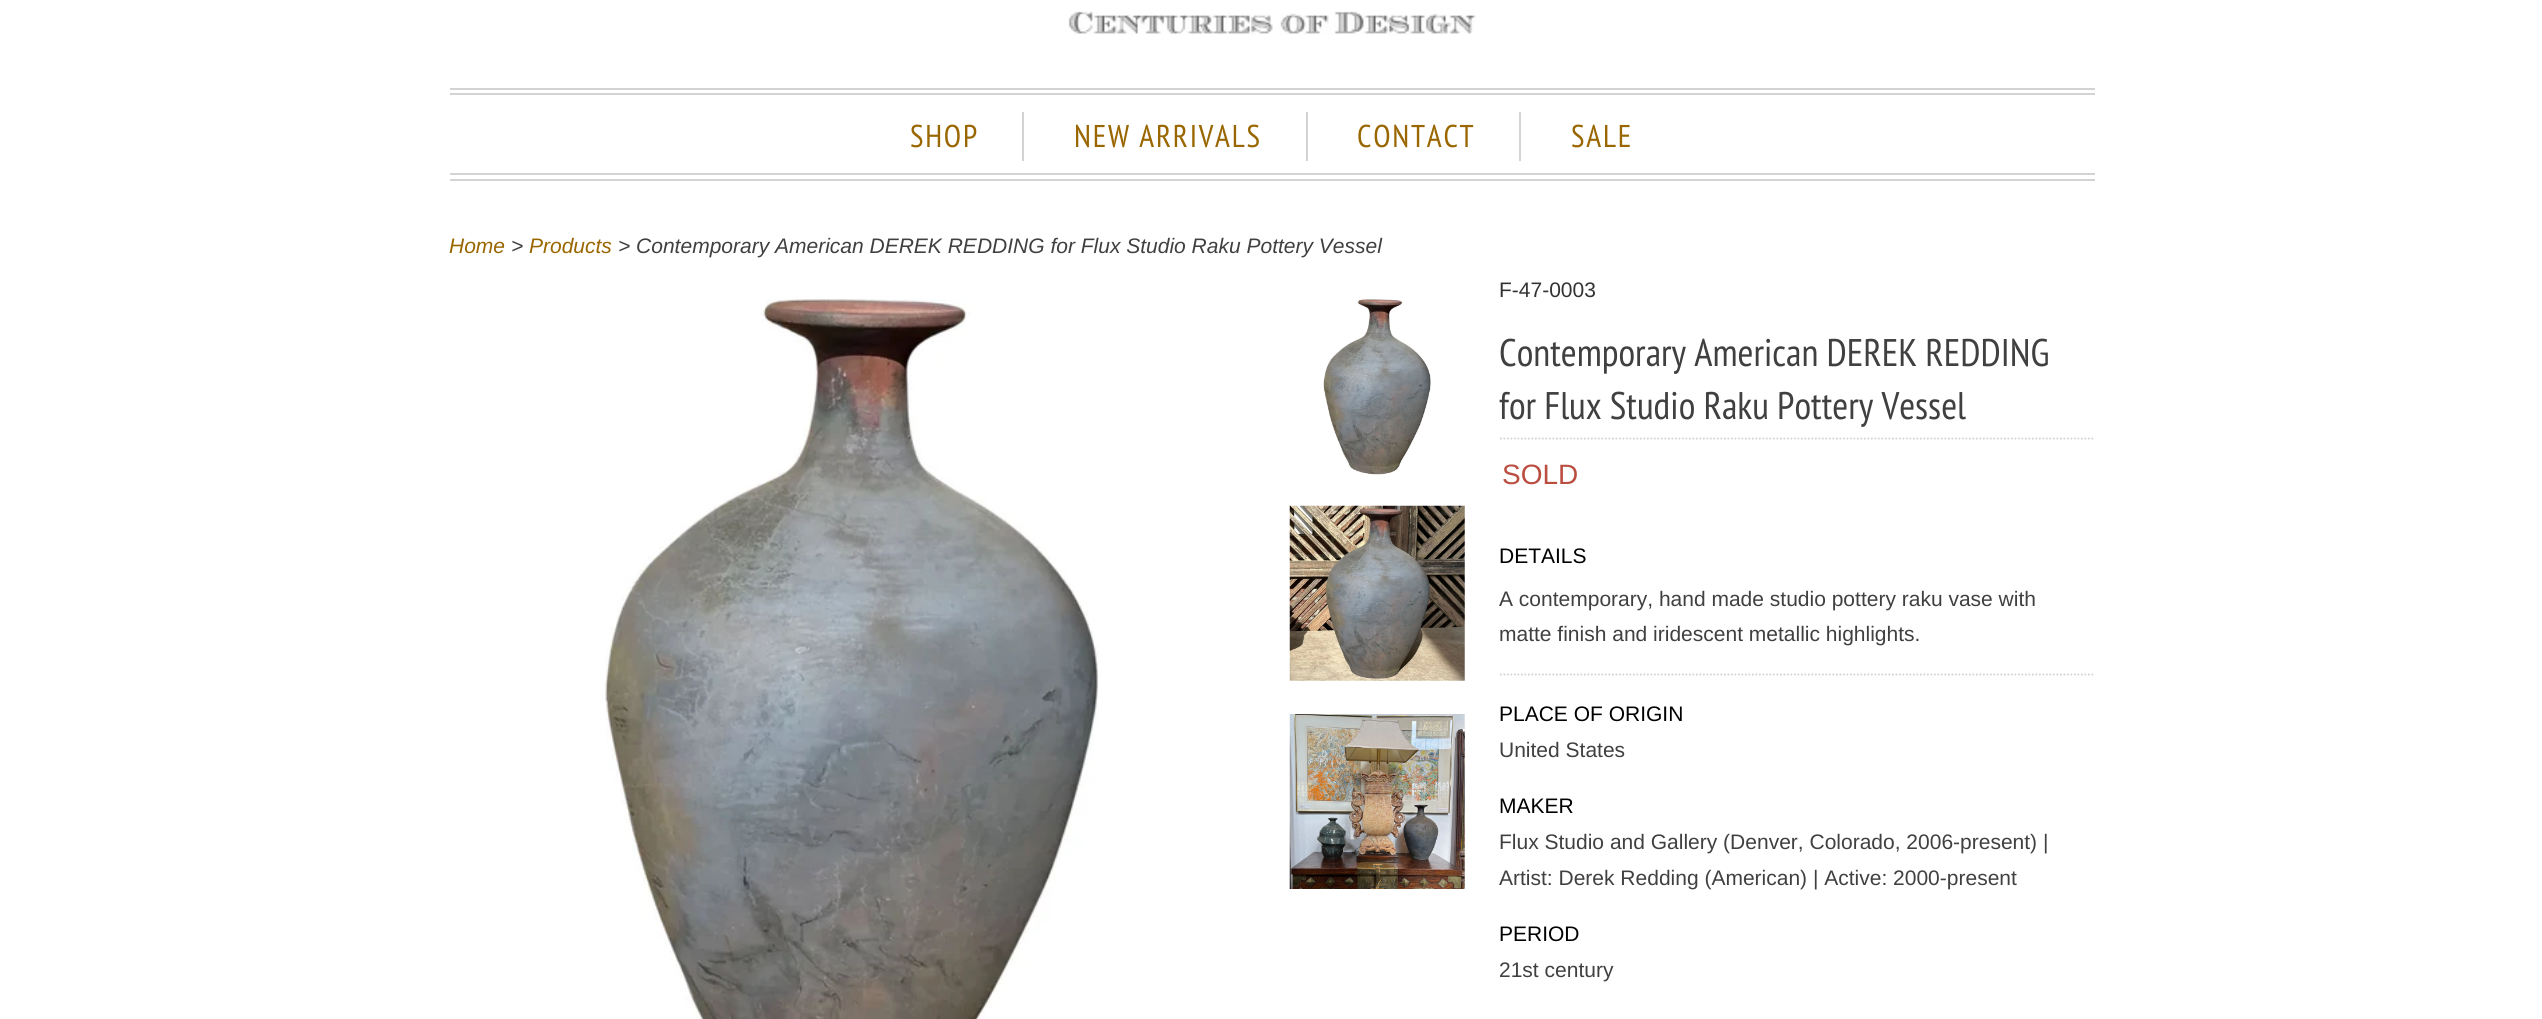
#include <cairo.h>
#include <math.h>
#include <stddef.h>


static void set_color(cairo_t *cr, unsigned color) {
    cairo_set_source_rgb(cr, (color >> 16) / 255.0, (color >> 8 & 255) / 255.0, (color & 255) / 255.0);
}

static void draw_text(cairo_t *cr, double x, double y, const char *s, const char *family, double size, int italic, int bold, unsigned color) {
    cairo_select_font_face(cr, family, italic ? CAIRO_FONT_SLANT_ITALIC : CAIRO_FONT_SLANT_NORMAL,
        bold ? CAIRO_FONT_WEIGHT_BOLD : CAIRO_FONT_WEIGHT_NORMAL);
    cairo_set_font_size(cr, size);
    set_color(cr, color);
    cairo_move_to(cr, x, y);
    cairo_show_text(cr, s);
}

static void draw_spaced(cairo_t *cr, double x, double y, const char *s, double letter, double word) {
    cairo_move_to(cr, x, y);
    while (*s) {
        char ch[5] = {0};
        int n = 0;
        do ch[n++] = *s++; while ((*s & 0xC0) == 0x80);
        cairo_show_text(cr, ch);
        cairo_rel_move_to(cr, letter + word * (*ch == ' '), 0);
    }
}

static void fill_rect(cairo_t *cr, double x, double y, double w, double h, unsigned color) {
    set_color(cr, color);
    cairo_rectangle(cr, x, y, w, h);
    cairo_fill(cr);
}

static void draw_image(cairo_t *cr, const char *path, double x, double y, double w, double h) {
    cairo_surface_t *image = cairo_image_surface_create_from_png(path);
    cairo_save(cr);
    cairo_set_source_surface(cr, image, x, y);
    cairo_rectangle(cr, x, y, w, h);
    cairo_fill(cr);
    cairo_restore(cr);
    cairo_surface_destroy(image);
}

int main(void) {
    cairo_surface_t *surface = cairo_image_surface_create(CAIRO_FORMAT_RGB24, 2542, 1019);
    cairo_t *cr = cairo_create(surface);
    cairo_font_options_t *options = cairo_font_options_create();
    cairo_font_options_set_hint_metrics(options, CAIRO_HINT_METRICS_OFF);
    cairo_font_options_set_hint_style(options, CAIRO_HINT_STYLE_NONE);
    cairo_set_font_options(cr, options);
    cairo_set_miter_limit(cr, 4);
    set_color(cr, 0xFFFFFF);
    cairo_paint(cr);
    draw_image(cr, "assets/img1.png", 1068, 11, 408, 24);
    fill_rect(cr, 450, 88, 1645, 2, 0xD3D3D3);
    fill_rect(cr, 450, 93, 1645, 2, 0xD3D3D3);
    fill_rect(cr, 450, 173, 1645, 2, 0xD3D3D3);
    fill_rect(cr, 450, 179, 1645, 2, 0xD3D3D3);
    fill_rect(cr, 1022, 112, 2, 49, 0xD3D3D3);
    cairo_select_font_face(cr, "PT Sans Narrow", CAIRO_FONT_SLANT_NORMAL, CAIRO_FONT_WEIGHT_NORMAL);
    cairo_set_font_size(cr, 31.5);
    set_color(cr, 0x996600);
    draw_spaced(cr, 910, 147, "SHOP", 1.75, 0);
    fill_rect(cr, 1306, 112, 2, 49, 0xD3D3D3);
    set_color(cr, 0x996600);
    draw_spaced(cr, 1074, 147, "NEW ARRIVALS", 1.75, 0);
    fill_rect(cr, 1519, 112, 2, 49, 0xD3D3D3);
    set_color(cr, 0x996600);
    draw_spaced(cr, 1357, 147, "CONTACT", 1.75, 0);
    draw_spaced(cr, 1571, 147, "SALE", 1.75, 0);
    draw_text(cr, 449, 253, "Home", "Liberation Sans", 21, 1, 0, 0x996600);
    draw_text(cr, 511, 253, ">", "Liberation Sans", 21, 1, 0, 0x404040);
    draw_text(cr, 529, 253, "Products", "Liberation Sans", 21, 1, 0, 0x996600);
    draw_text(cr, 618, 253, "> Contemporary American DEREK REDDING for Flux Studio Raku Pottery Vessel", "Liberation Sans", 21, 1, 0, 0x404040);
    draw_image(cr, "assets/img2.png", 605, 299, 494, 720);
    draw_image(cr, "assets/img3.png", 1323, 299, 108, 176);
    draw_image(cr, "assets/img4.png", 1289, 505, 176, 176);
    draw_image(cr, "assets/img5.png", 1289, 714, 176, 175);
    draw_text(cr, 1499, 297, "F-47-0003", "Liberation Sans", 21, 0, 0, 0x333333);
    cairo_new_path(cr);
    cairo_move_to(cr, 1500, 438.5);
    cairo_line_to(cr, 2095, 438.5);
    set_color(cr, 0xD3D3D3);
    cairo_set_line_width(cr, 1.8);
    cairo_set_dash(cr, (double[]){1.75, 1.75}, 2, 0);
    cairo_stroke(cr);
    draw_text(cr, 1499, 366, "Contemporary American DEREK REDDING", "PT Sans Narrow", 38.5, 0, 0, 0x404040);
    draw_text(cr, 1499, 419, "for Flux Studio Raku Pottery Vessel", "PT Sans Narrow", 38.5, 0, 0, 0x404040);
    draw_text(cr, 1502, 484, "SOLD", "Liberation Sans", 28, 0, 0, 0xBA4E41);
    draw_text(cr, 1499, 563, "DETAILS", "Liberation Sans", 21, 0, 0, 0x000000);
    cairo_new_path(cr);
    cairo_move_to(cr, 1500, 674.5);
    cairo_line_to(cr, 2095, 674.5);
    set_color(cr, 0xD3D3D3);
    cairo_stroke(cr);
    draw_text(cr, 1499, 606, "A contemporary, hand made studio pottery raku vase with", "Liberation Sans", 21, 0, 0, 0x404040);
    draw_text(cr, 1499, 641, "matte finish and iridescent metallic highlights.", "Liberation Sans", 21, 0, 0, 0x404040);
    draw_text(cr, 1499, 721, "PLACE OF ORIGIN", "Liberation Sans", 21, 0, 0, 0x000000);
    draw_text(cr, 1499, 757, "United States", "Liberation Sans", 21, 0, 0, 0x404040);
    draw_text(cr, 1499, 813, "MAKER", "Liberation Sans", 21, 0, 0, 0x000000);
    draw_text(cr, 1499, 849, "Flux Studio and Gallery (Denver, Colorado, 2006-present) |", "Liberation Sans", 21, 0, 0, 0x404040);
    draw_text(cr, 1499, 885, "Artist: Derek Redding (American) | Active: 2000-present", "Liberation Sans", 21, 0, 0, 0x404040);
    draw_text(cr, 1499, 941, "PERIOD", "Liberation Sans", 21, 0, 0, 0x000000);
    draw_text(cr, 1499, 977, "21st century", "Liberation Sans", 21, 0, 0, 0x404040);
    cairo_surface_write_to_png(surface, "output.png");
    cairo_font_options_destroy(options);
    cairo_destroy(cr);
    cairo_surface_destroy(surface);
    return 0;
}
